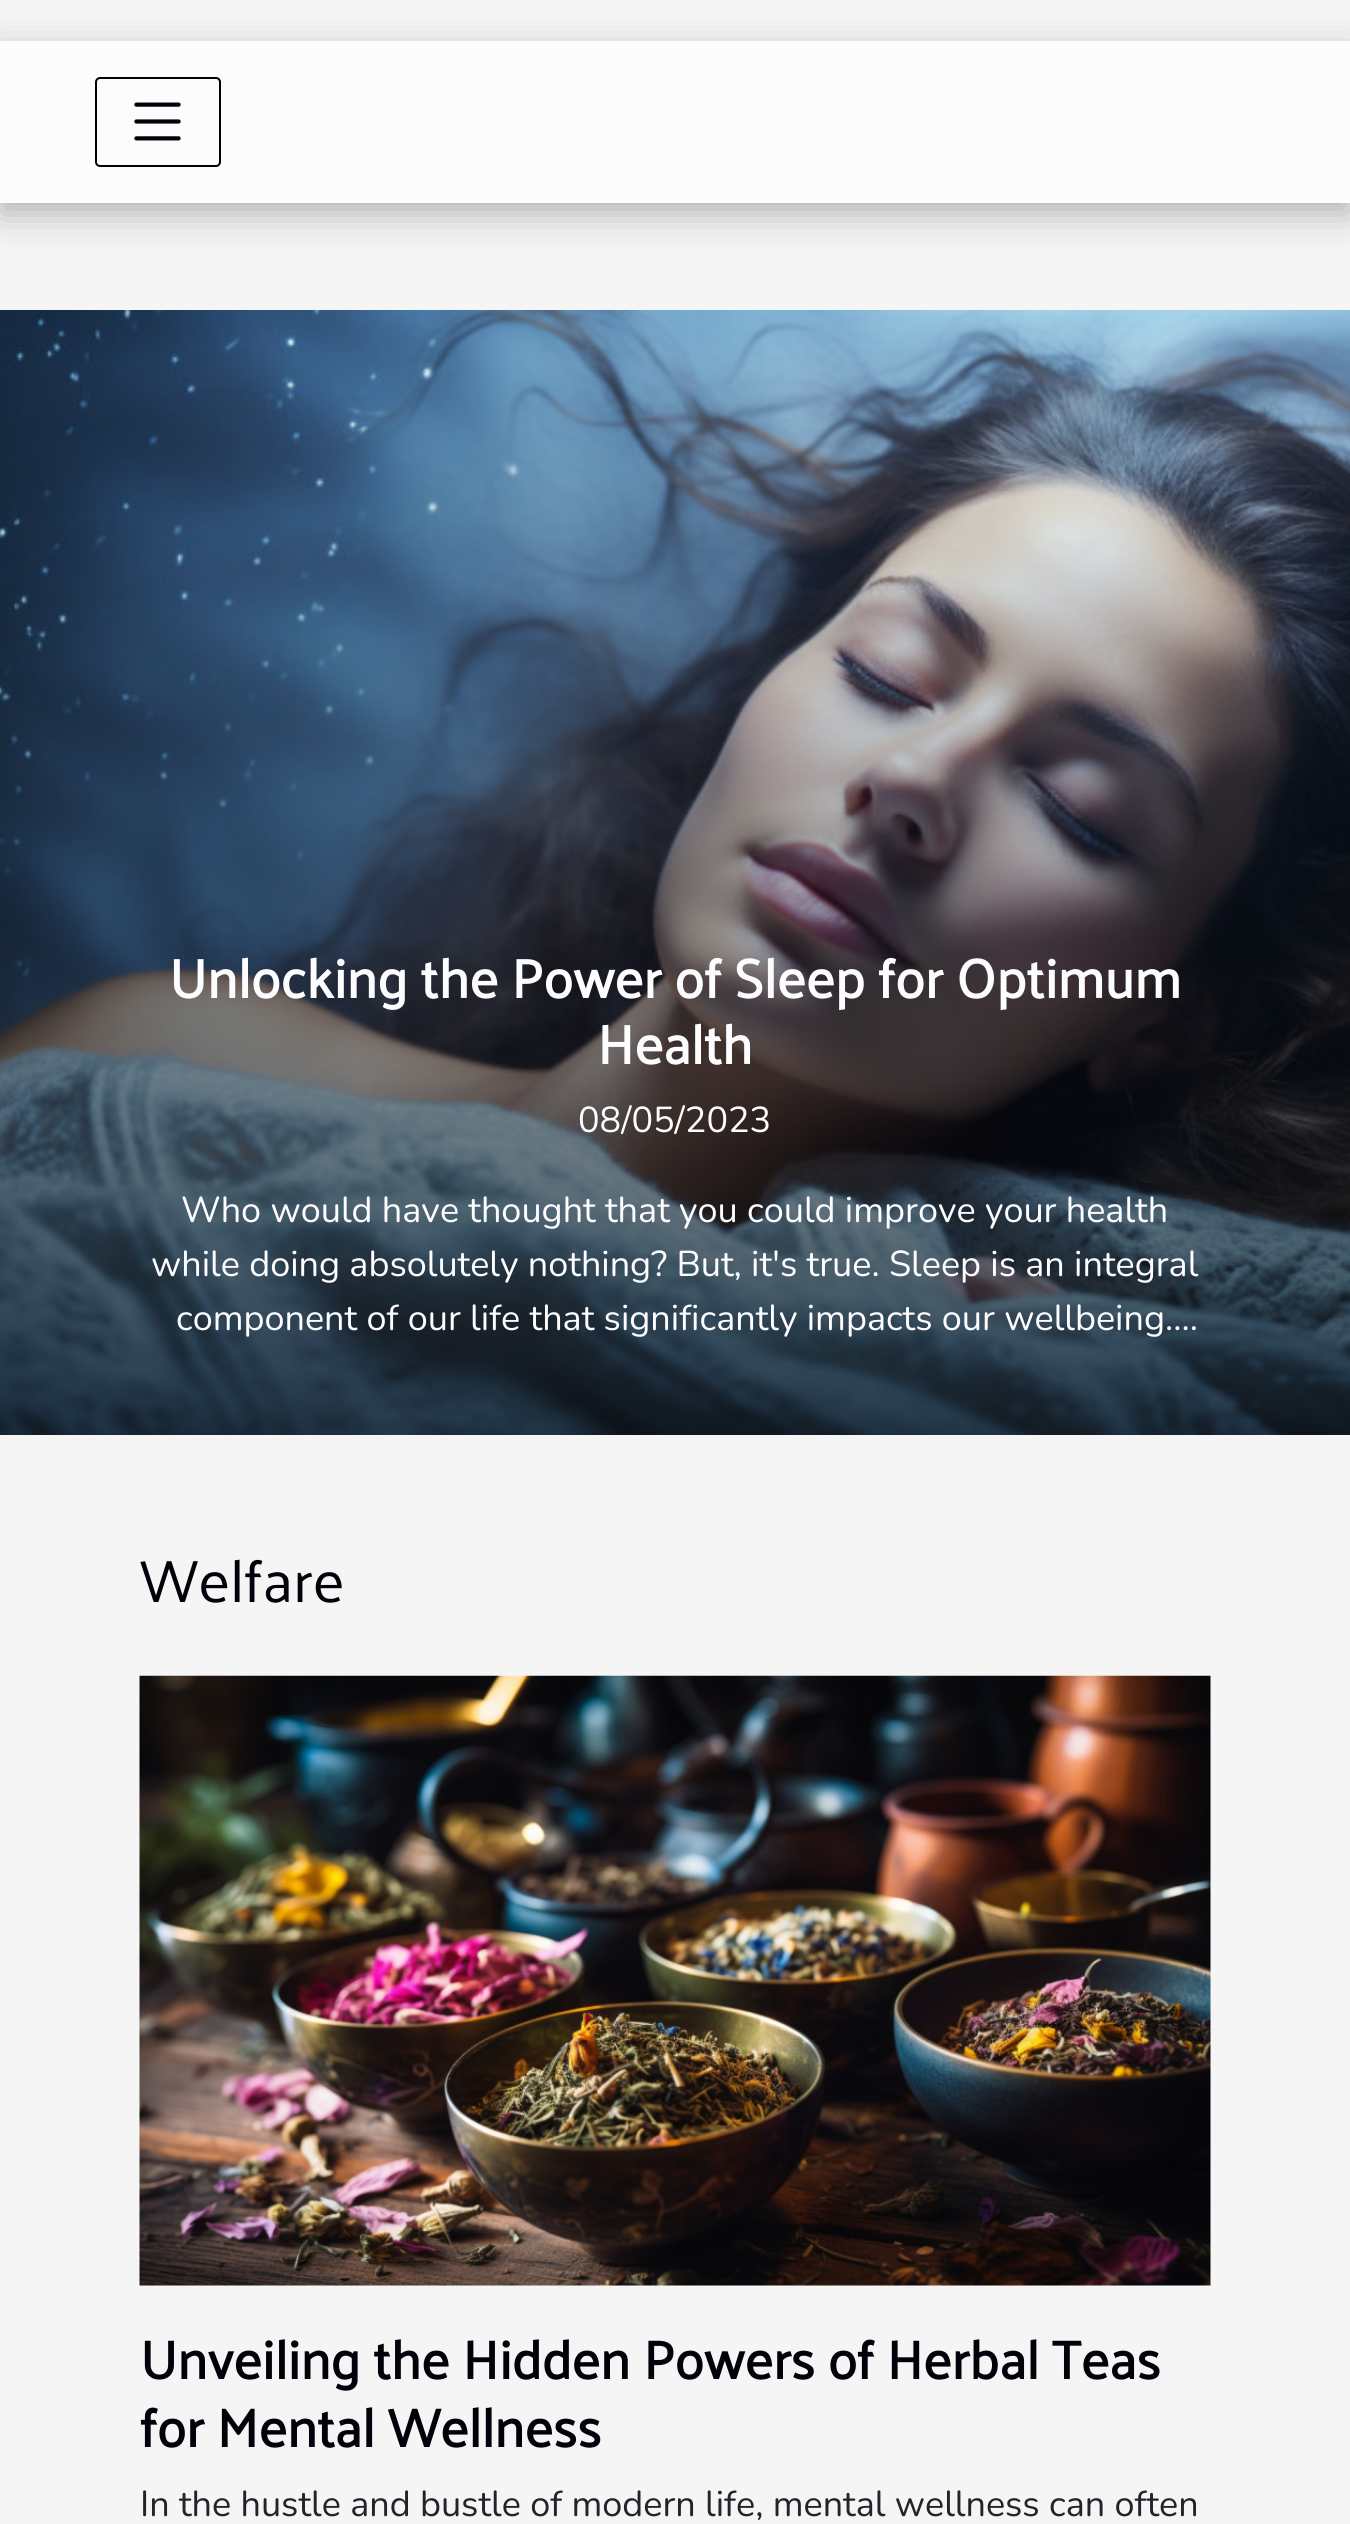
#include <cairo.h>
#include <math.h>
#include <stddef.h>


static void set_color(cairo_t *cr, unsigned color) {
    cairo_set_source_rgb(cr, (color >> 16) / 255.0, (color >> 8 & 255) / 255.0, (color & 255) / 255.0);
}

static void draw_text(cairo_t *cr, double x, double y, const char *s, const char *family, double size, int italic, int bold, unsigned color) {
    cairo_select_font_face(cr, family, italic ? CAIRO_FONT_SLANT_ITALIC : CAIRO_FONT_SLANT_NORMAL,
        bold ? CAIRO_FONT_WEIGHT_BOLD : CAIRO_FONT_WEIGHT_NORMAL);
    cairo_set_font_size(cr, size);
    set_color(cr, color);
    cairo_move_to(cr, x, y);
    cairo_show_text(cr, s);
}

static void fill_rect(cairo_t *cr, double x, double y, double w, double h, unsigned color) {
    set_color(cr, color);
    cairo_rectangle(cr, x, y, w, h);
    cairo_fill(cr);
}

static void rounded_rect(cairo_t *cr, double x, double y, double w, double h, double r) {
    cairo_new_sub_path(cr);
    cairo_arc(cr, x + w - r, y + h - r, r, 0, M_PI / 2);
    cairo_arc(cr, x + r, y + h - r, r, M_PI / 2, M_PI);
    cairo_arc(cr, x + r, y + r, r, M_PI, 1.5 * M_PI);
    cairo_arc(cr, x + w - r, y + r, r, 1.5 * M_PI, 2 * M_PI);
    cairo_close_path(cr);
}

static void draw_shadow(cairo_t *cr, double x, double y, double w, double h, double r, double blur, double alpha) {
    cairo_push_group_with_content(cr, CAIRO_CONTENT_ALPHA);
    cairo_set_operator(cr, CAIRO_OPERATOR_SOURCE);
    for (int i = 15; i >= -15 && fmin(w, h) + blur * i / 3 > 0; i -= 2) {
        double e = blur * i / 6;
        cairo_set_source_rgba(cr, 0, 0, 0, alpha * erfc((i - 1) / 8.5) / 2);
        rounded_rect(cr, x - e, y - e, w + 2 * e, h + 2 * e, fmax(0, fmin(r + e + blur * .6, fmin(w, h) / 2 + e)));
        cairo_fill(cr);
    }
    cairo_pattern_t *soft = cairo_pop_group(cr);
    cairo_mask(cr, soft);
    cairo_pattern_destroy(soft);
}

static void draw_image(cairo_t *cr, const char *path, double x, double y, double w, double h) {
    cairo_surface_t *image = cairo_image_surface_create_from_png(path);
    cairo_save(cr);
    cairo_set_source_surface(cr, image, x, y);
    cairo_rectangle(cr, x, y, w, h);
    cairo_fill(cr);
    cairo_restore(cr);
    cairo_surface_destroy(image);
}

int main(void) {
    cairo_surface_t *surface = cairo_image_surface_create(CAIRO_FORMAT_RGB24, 1350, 2524);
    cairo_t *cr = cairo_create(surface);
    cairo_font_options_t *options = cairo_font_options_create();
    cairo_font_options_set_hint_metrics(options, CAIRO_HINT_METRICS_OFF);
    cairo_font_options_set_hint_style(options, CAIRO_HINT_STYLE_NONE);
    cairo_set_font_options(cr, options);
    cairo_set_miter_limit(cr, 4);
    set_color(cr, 0xF5F5F5);
    cairo_paint(cr);
    set_color(cr, 0xB3B3B4);
    draw_shadow(cr, 0, 52, 1350, 162, 0, 18, 1);
    fill_rect(cr, 0, 41, 1350, 162, 0xFCFCFC);
    rounded_rect(cr, 96, 78, 124, 88, 4);
    set_color(cr, 0x04000A);
    cairo_stroke(cr);
    draw_image(cr, "assets/img1.png", 134, 102, 47, 39);
    draw_image(cr, "assets/img2.png", 0, 310, 1350, 1125);
    draw_text(cr, 169, 998, "Unlocking the Power of Sleep for Optimum", "Palanquin", 54.9, 0, 1, 0xFDFCFF);
    draw_text(cr, 597, 1064, "Health", "Palanquin", 54.9, 0, 1, 0xFDFCFF);
    draw_text(cr, 578, 1132, "08/05/2023", "Nunito ExtraLight", 36, 0, 0, 0xFDFCFF);
    draw_text(cr, 181, 1222, "Who would have thought that you could improve your health", "Nunito ExtraLight", 36, 0, 0, 0xFDFCFF);
    draw_text(cr, 151, 1276, "while doing absolutely nothing? But, it's true. Sleep is an integral", "Nunito ExtraLight", 36, 0, 0, 0xFDFCFF);
    draw_text(cr, 176, 1330, "component of our life that significantly impacts our wellbeing.…", "Nunito ExtraLight", 36, 0, 0, 0xFDFCFF);
    draw_text(cr, 140, 1602, "Welfare", "Palanquin", 60, 0, 0, 0x04000A);
    draw_image(cr, "assets/img3.png", 139, 1675, 1072, 611);
    draw_text(cr, 140, 2379, "Unveiling the Hidden Powers of Herbal Teas", "Palanquin", 54, 0, 1, 0x04000A);
    draw_text(cr, 140, 2447, "for Mental Wellness", "Palanquin", 54, 0, 1, 0x04000A);
    draw_text(cr, 140, 2516, "In the hustle and bustle of modern life, mental wellness can often", "Nunito ExtraLight", 36, 0, 0, 0x212529);
    cairo_surface_write_to_png(surface, "output.png");
    cairo_font_options_destroy(options);
    cairo_destroy(cr);
    cairo_surface_destroy(surface);
    return 0;
}
